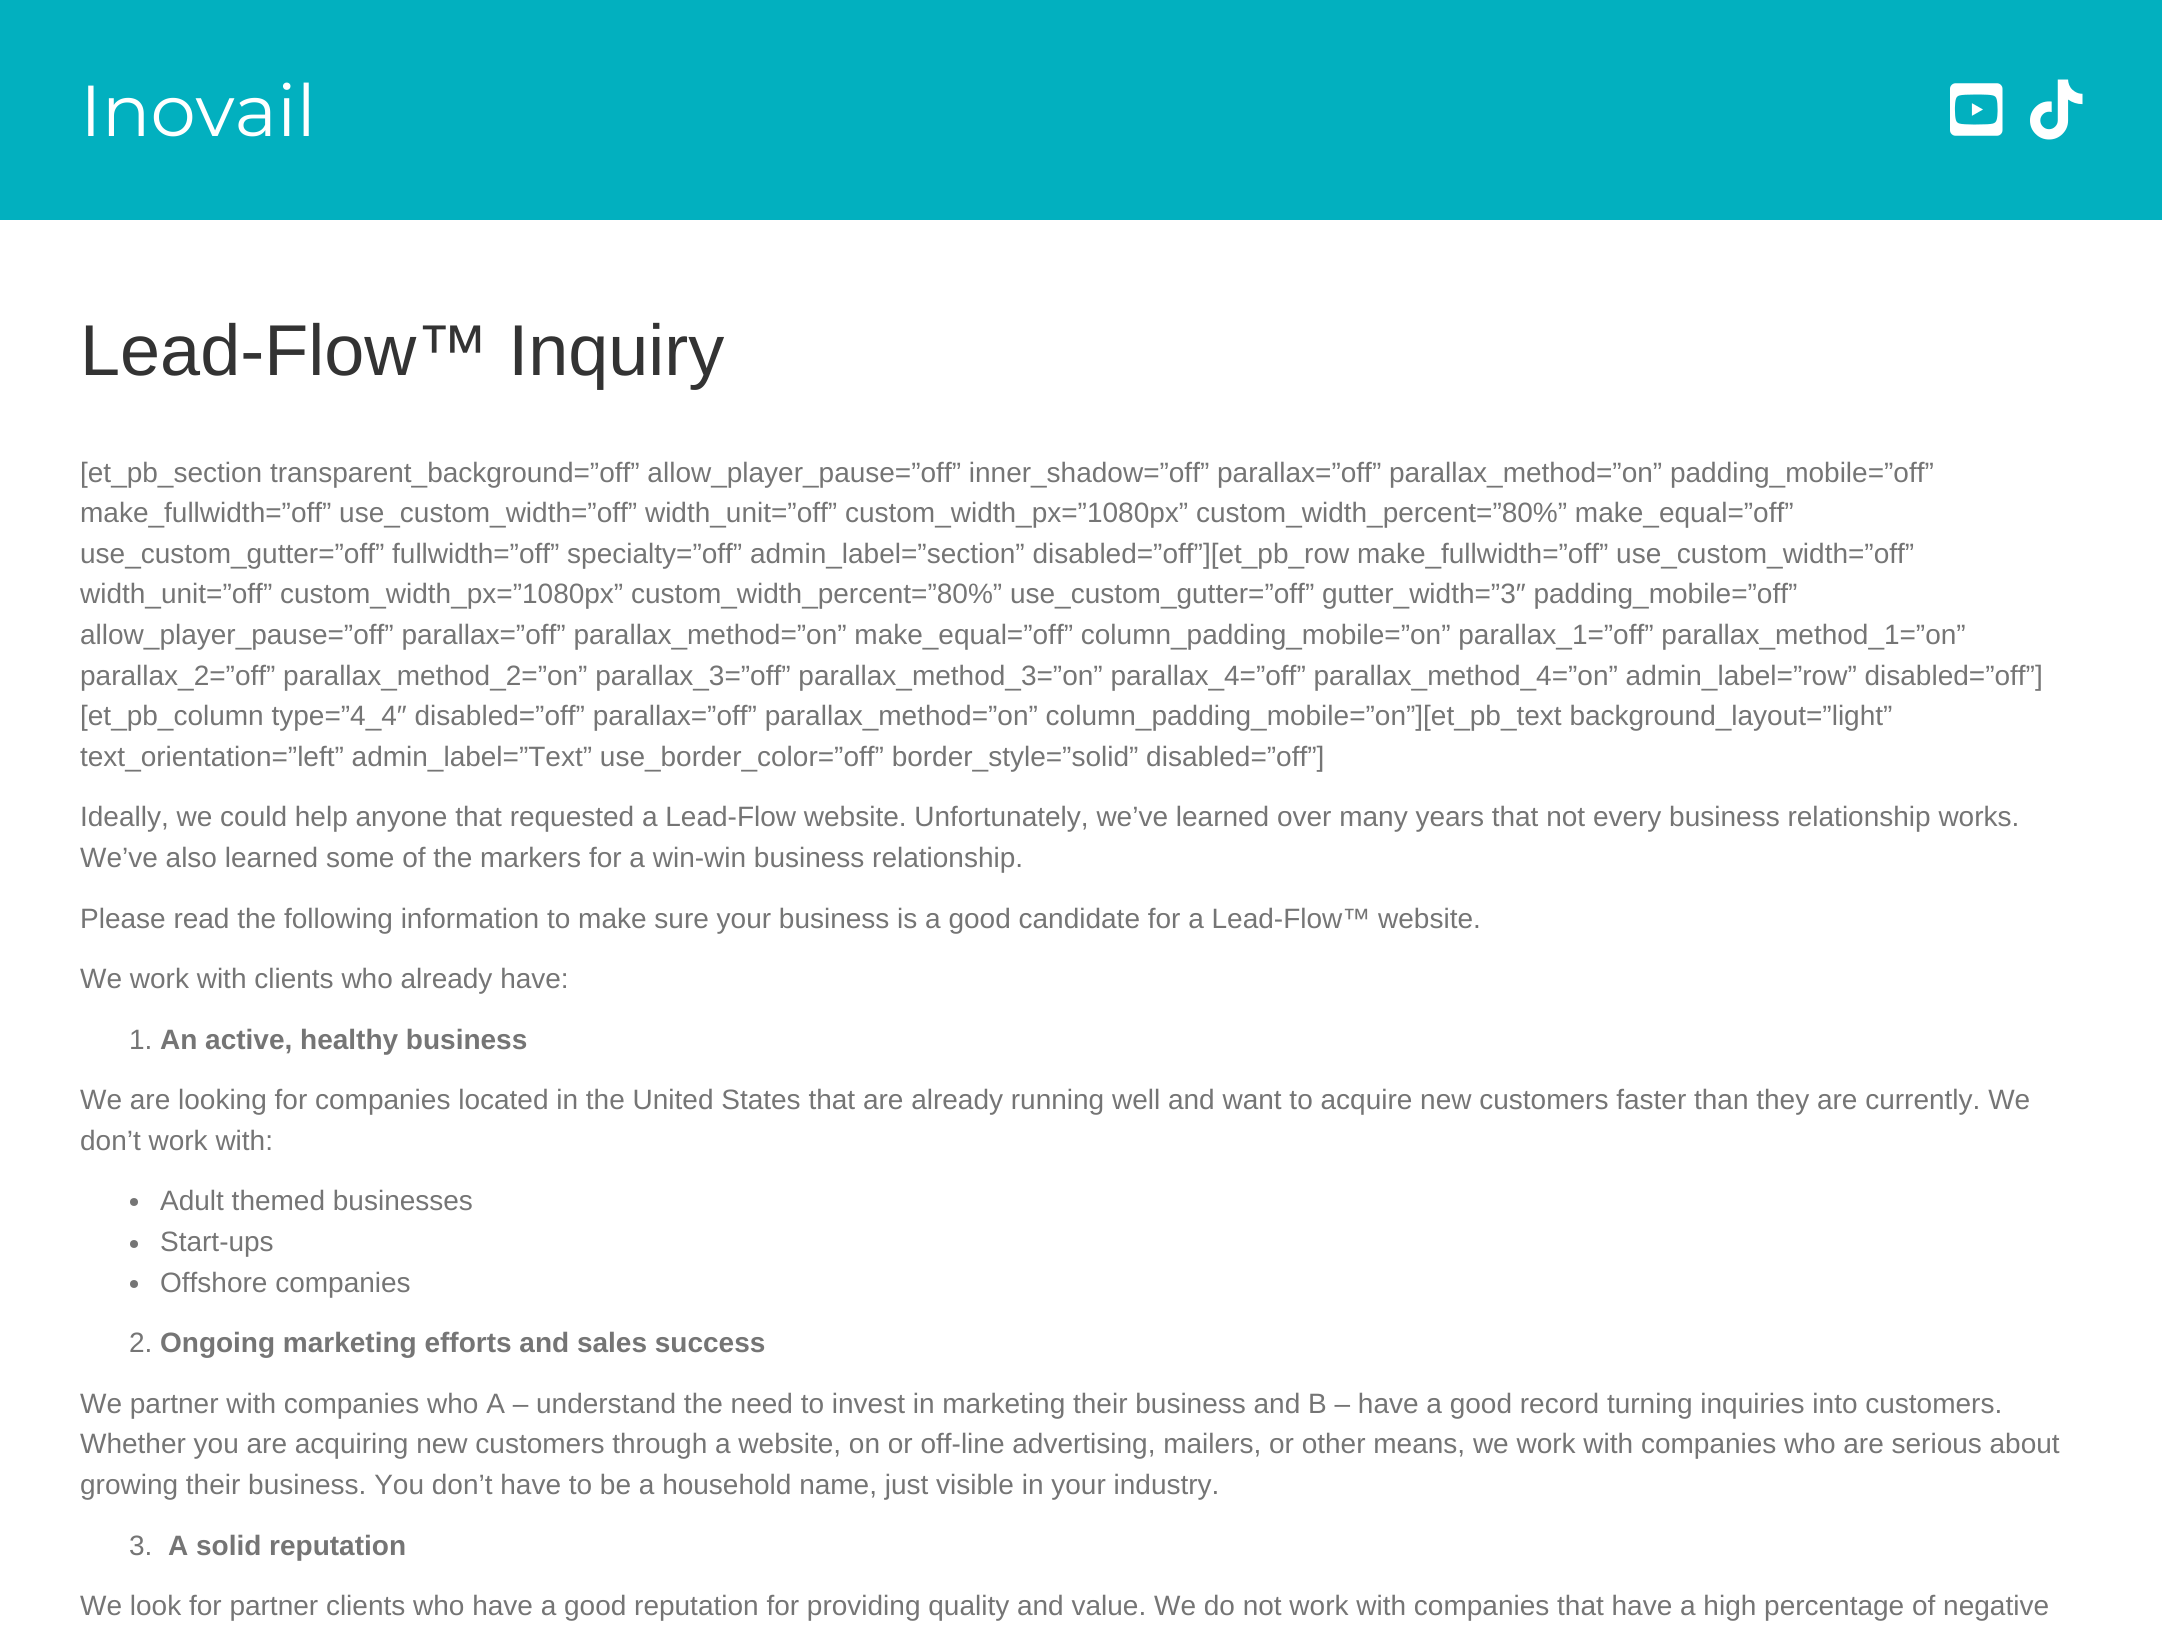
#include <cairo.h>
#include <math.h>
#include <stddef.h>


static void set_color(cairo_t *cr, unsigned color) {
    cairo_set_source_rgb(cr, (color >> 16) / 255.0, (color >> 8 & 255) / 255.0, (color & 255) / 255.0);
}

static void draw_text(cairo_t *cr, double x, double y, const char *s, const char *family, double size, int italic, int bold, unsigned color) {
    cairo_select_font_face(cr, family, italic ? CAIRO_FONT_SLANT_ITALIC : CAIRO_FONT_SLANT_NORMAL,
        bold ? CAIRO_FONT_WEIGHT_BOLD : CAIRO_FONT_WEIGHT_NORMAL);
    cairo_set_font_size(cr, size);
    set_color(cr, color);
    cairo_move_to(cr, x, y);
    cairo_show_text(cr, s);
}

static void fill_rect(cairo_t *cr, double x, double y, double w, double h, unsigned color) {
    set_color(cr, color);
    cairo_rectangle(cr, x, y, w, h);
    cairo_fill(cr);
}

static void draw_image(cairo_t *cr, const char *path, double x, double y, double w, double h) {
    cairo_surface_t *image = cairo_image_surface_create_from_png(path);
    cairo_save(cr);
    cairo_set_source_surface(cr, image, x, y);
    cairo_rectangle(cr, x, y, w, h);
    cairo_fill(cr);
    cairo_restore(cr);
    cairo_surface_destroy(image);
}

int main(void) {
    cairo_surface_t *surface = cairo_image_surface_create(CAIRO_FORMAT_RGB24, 2162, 1645);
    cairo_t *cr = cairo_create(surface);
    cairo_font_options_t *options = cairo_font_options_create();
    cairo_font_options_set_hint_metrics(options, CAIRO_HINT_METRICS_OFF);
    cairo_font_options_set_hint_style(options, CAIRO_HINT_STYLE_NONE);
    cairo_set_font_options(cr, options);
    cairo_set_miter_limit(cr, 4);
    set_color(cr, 0xFFFFFF);
    cairo_paint(cr);
    fill_rect(cr, 0, 0, 2162, 220, 0x02B0BF);
    draw_text(cr, 80, 136, "Inovail", "Montserrat Thin", 72, 0, 0, 0xFFFFFF);
    draw_image(cr, "assets/img1.png", 1950, 83, 53, 53);
    draw_image(cr, "assets/img2.png", 2030, 79, 53, 61);
    draw_text(cr, 80, 375, "Lead-Flow™ Inquiry", "Liberation Sans", 72, 0, 0, 0x333333);
    draw_text(cr, 80, 482, "[et_pb_section transparent_background=”off” allow_player_pause=”off” inner_shadow=”off” parallax=”off” parallax_method=”on” padding_mobile=”off”", "Liberation Sans", 28, 0, 0, 0x757575);
    draw_text(cr, 80, 522, "make_fullwidth=”off” use_custom_width=”off” width_unit=”off” custom_width_px=”1080px” custom_width_percent=”80%” make_equal=”off”", "Liberation Sans", 28, 0, 0, 0x757575);
    draw_text(cr, 80, 563, "use_custom_gutter=”off” fullwidth=”off” specialty=”off” admin_label=”section” disabled=”off”][et_pb_row make_fullwidth=”off” use_custom_width=”off”", "Liberation Sans", 28, 0, 0, 0x757575);
    draw_text(cr, 80, 603, "width_unit=”off” custom_width_px=”1080px” custom_width_percent=”80%” use_custom_gutter=”off” gutter_width=”3″ padding_mobile=”off”", "Liberation Sans", 28, 0, 0, 0x757575);
    draw_text(cr, 80, 644, "allow_player_pause=”off” parallax=”off” parallax_method=”on” make_equal=”off” column_padding_mobile=”on” parallax_1=”off” parallax_method_1=”on”", "Liberation Sans", 28, 0, 0, 0x757575);
    draw_text(cr, 80, 685, "parallax_2=”off” parallax_method_2=”on” parallax_3=”off” parallax_method_3=”on” parallax_4=”off” parallax_method_4=”on” admin_label=”row” disabled=”off”]", "Liberation Sans", 28, 0, 0, 0x757575);
    draw_text(cr, 80, 725, "[et_pb_column type=”4_4″ disabled=”off” parallax=”off” parallax_method=”on” column_padding_mobile=”on”][et_pb_text background_layout=”light”", "Liberation Sans", 28, 0, 0, 0x757575);
    draw_text(cr, 80, 766, "text_orientation=”left” admin_label=”Text” use_border_color=”off” border_style=”solid” disabled=”off”]", "Liberation Sans", 28, 0, 0, 0x757575);
    draw_text(cr, 80, 826, "Ideally, we could help anyone that requested a Lead-Flow website. Unfortunately, we’ve learned over many years that not every business relationship works.", "Liberation Sans", 28, 0, 0, 0x757575);
    draw_text(cr, 80, 867, "We’ve also learned some of the markers for a win-win business relationship.", "Liberation Sans", 28, 0, 0, 0x757575);
    draw_text(cr, 80, 928, "Please read the following information to make sure your business is a good candidate for a Lead-Flow™ website.", "Liberation Sans", 28, 0, 0, 0x757575);
    draw_text(cr, 80, 988, "We work with clients who already have:", "Liberation Sans", 28, 0, 0, 0x757575);
    draw_text(cr, 129, 1049, "1.", "Liberation Sans", 28, 0, 0, 0x757575);
    draw_text(cr, 160, 1049, "An active, healthy business", "Liberation Sans", 28, 0, 1, 0x757575);
    draw_text(cr, 80, 1109, "We are looking for companies located in the United States that are already running well and want to acquire new customers faster than they are currently. We", "Liberation Sans", 28, 0, 0, 0x757575);
    draw_text(cr, 80, 1150, "don’t work with:", "Liberation Sans", 28, 0, 0, 0x757575);
    cairo_new_path(cr);
    cairo_arc(cr, 134, 1202, 4, 0, 2 * M_PI);
    cairo_fill(cr);
    draw_text(cr, 160, 1210, "Adult themed businesses", "Liberation Sans", 28, 0, 0, 0x757575);
    cairo_new_path(cr);
    cairo_arc(cr, 134, 1244, 4, 0, 2 * M_PI);
    cairo_fill(cr);
    draw_text(cr, 160, 1251, "Start-ups", "Liberation Sans", 28, 0, 0, 0x757575);
    cairo_new_path(cr);
    cairo_arc(cr, 134, 1284, 4, 0, 2 * M_PI);
    cairo_fill(cr);
    draw_text(cr, 160, 1292, "Offshore companies", "Liberation Sans", 28, 0, 0, 0x757575);
    draw_text(cr, 129, 1352, "2.", "Liberation Sans", 28, 0, 0, 0x757575);
    draw_text(cr, 160, 1352, "Ongoing marketing efforts and sales success", "Liberation Sans", 28, 0, 1, 0x757575);
    draw_text(cr, 80, 1413, "We partner with companies who A – understand the need to invest in marketing their business and B – have a good record turning inquiries into customers.", "Liberation Sans", 28, 0, 0, 0x757575);
    draw_text(cr, 80, 1453, "Whether you are acquiring new customers through a website, on or off-line advertising, mailers, or other means, we work with companies who are serious about", "Liberation Sans", 28, 0, 0, 0x757575);
    draw_text(cr, 80, 1494, "growing their business. You don’t have to be a household name, just visible in your industry.", "Liberation Sans", 28, 0, 0, 0x757575);
    draw_text(cr, 129, 1555, "3.", "Liberation Sans", 28, 0, 0, 0x757575);
    draw_text(cr, 168, 1555, "A solid reputation", "Liberation Sans", 28, 0, 1, 0x757575);
    draw_text(cr, 80, 1615, "We look for partner clients who have a good reputation for providing quality and value. We do not work with companies that have a high percentage of negative", "Liberation Sans", 28, 0, 0, 0x757575);
    cairo_surface_write_to_png(surface, "output.png");
    cairo_font_options_destroy(options);
    cairo_destroy(cr);
    cairo_surface_destroy(surface);
    return 0;
}
